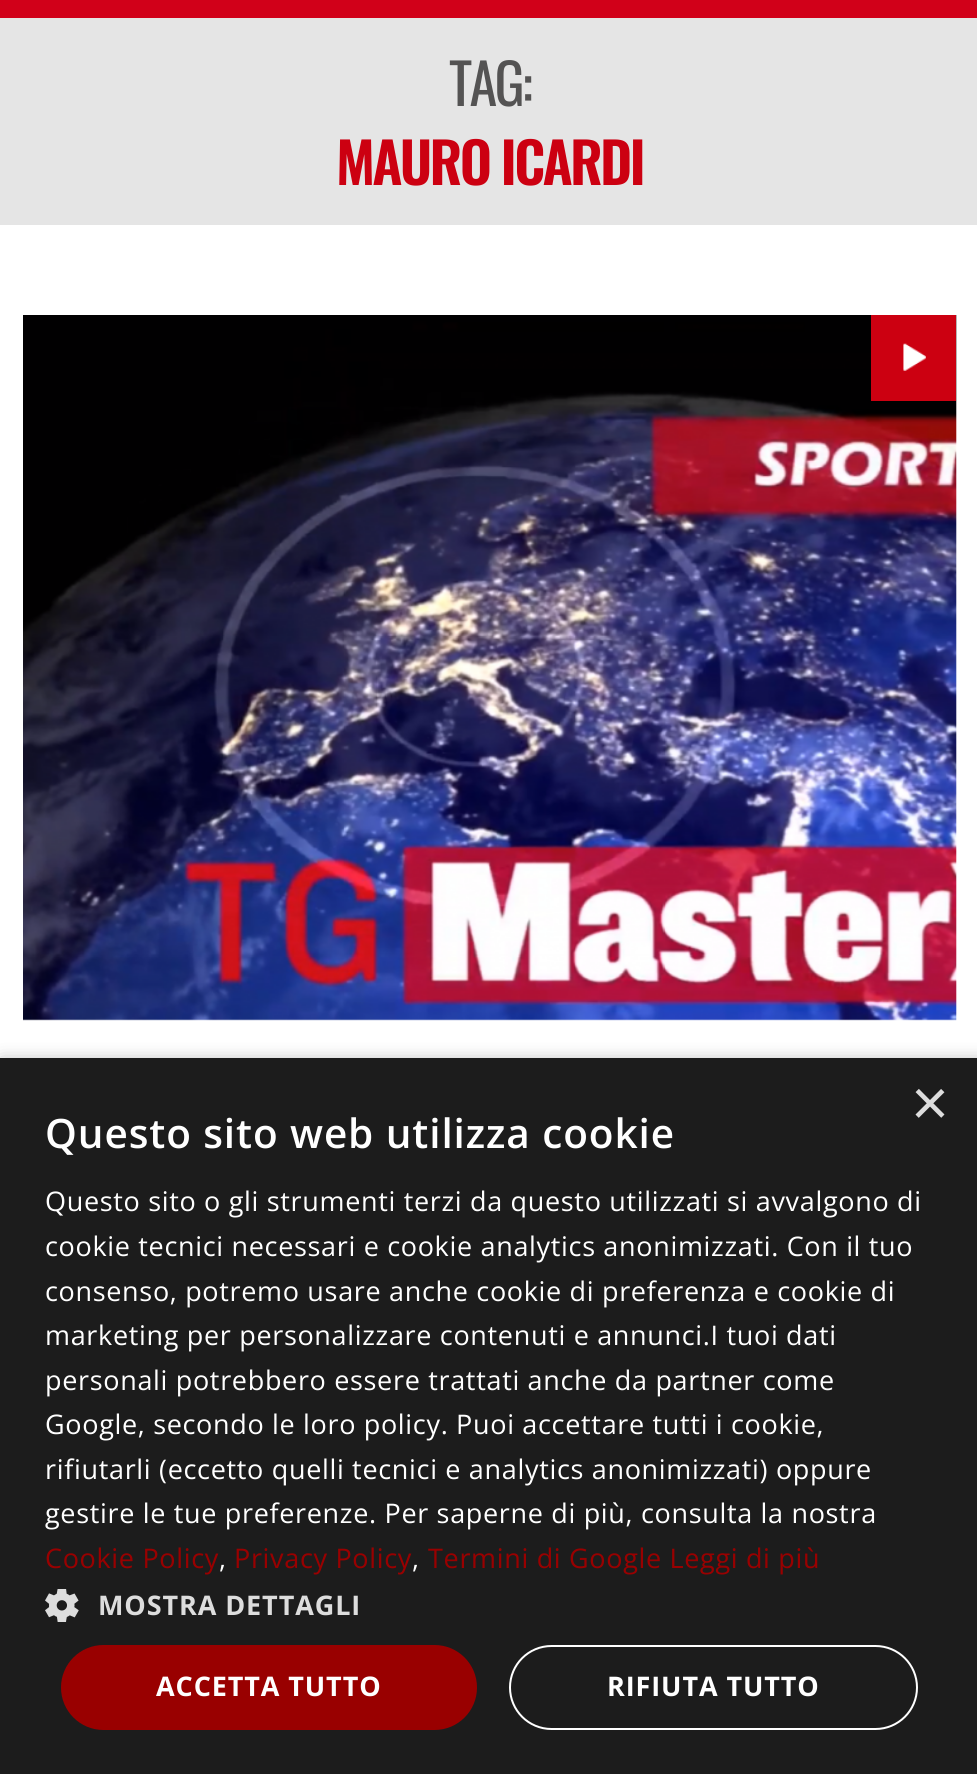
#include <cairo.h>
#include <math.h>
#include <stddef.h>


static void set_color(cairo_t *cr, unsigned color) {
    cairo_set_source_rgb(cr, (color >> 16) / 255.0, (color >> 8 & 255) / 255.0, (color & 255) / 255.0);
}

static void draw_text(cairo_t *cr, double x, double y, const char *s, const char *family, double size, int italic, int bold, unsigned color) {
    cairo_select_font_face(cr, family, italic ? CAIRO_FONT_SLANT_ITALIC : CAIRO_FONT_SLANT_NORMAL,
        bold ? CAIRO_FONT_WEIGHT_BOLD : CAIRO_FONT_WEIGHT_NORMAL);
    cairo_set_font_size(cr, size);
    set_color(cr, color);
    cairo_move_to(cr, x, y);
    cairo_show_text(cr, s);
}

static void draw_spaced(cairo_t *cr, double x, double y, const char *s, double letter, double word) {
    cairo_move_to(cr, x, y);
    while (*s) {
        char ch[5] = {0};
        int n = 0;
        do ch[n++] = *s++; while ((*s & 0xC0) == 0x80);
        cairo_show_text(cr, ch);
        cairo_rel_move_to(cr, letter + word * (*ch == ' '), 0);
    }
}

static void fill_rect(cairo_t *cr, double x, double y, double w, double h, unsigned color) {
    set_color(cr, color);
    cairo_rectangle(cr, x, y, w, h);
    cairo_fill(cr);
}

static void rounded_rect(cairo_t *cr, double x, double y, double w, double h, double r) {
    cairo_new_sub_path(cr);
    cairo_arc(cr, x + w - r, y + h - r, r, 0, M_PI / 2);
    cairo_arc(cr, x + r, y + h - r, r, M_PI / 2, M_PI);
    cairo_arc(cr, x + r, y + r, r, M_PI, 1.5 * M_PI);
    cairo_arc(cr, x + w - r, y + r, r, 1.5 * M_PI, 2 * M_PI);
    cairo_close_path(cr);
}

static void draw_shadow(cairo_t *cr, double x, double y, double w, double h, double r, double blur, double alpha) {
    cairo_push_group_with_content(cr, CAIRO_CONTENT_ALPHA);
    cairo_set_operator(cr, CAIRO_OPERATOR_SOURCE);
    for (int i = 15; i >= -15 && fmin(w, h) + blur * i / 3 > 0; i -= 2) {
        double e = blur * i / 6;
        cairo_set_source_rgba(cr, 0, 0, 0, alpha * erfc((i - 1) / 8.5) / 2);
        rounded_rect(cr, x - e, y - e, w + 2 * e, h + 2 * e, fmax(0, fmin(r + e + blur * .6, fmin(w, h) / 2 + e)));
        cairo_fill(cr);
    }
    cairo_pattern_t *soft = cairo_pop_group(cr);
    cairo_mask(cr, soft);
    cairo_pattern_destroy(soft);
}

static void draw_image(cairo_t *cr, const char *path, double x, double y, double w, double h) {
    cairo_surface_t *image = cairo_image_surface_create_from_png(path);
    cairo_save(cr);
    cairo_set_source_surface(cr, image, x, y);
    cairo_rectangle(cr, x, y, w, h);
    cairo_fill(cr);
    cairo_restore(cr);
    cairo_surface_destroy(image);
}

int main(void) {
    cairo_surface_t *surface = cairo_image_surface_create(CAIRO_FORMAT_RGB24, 977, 1774);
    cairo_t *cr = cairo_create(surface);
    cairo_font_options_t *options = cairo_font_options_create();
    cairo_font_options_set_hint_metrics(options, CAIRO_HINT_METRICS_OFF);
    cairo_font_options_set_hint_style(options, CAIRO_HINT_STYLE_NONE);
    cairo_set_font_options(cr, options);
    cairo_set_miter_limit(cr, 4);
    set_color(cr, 0xFFFFFF);
    cairo_paint(cr);
    fill_rect(cr, 0, 0, 977, 18, 0xD10019);
    fill_rect(cr, 0, 18, 977, 207, 0xE5E5E5);
    cairo_select_font_face(cr, "Oswald", CAIRO_FONT_SLANT_NORMAL, CAIRO_FONT_WEIGHT_NORMAL);
    cairo_set_font_size(cr, 56.25);
    set_color(cr, 0x545353);
    draw_spaced(cr, 449, 106, "TAG:", -2.75, 0);
    cairo_select_font_face(cr, "Oswald SemiBold", CAIRO_FONT_SLANT_NORMAL, CAIRO_FONT_WEIGHT_NORMAL);
    set_color(cr, 0xCC0011);
    draw_spaced(cr, 336, 185, "MAURO ICARDI", -2.75, 0);
    draw_image(cr, "assets/img1.png", 23, 315, 934, 706);
    fill_rect(cr, 871, 315, 85, 86, 0xCC0011);
    draw_image(cr, "assets/img2.png", 903, 343, 23, 28);
    set_color(cr, 0x000000);
    draw_shadow(cr, 2, 1062, 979, 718, 0, 9, 0.35);
    fill_rect(cr, 0, 1058, 977, 716, 0x1C1C1C);
    draw_text(cr, 911, 1125, "×", "Liberation Sans", 65, 0, 0, 0xDDDDDD);
    cairo_select_font_face(cr, "Open Sans SemiBold", CAIRO_FONT_SLANT_NORMAL, CAIRO_FONT_WEIGHT_NORMAL);
    cairo_set_font_size(cr, 40.5);
    set_color(cr, 0xFFFFFF);
    draw_spaced(cr, 45, 1148, "Questo sito web utilizza cookie", 0.9, 0);
    cairo_select_font_face(cr, "Open Sans", CAIRO_FONT_SLANT_NORMAL, CAIRO_FONT_WEIGHT_NORMAL);
    cairo_set_font_size(cr, 27);
    draw_spaced(cr, 45, 1211, "Questo sito o gli strumenti terzi da questo utilizzati si avvalgono di", 0.67, 0);
    draw_spaced(cr, 45, 1256, "cookie tecnici necessari e cookie analytics anonimizzati. Con il tuo", 0.67, 0);
    draw_spaced(cr, 45, 1301, "consenso, potremo usare anche cookie di preferenza e cookie di", 0.67, 0);
    draw_spaced(cr, 45, 1345, "marketing per personalizzare contenuti e annunci.I tuoi dati", 0.67, 0);
    draw_spaced(cr, 45, 1390, "personali potrebbero essere trattati anche da partner come", 0.67, 0);
    draw_spaced(cr, 45, 1434, "Google, secondo le loro policy. Puoi accettare tutti i cookie,", 0.67, 0);
    draw_spaced(cr, 45, 1479, "rifiutarli (eccetto quelli tecnici e analytics anonimizzati) oppure", 0.67, 0);
    draw_spaced(cr, 45, 1523, "gestire le tue preferenze. Per saperne di più, consulta la nostra", 0.67, 0);
    set_color(cr, 0x990000);
    draw_spaced(cr, 45, 1568, "Cookie Policy", 0.67, 0);
    set_color(cr, 0xFFFFFF);
    draw_spaced(cr, 219, 1568, ",", 0.67, 0);
    set_color(cr, 0x990000);
    draw_spaced(cr, 234, 1568, "Privacy Policy", 0.67, 0);
    set_color(cr, 0xFFFFFF);
    draw_spaced(cr, 412, 1568, ",", 0.67, 0);
    set_color(cr, 0x990000);
    draw_spaced(cr, 428, 1568, "Termini di Google Leggi di più", 0.67, 0);
    draw_image(cr, "assets/img3.png", 45, 1589, 34, 33);
    cairo_select_font_face(cr, "Open Sans", CAIRO_FONT_SLANT_NORMAL, CAIRO_FONT_WEIGHT_BOLD);
    set_color(cr, 0xDDDDDD);
    draw_spaced(cr, 98, 1615, "MOSTRA DETTAGLI", 0.9, 0);
    set_color(cr, 0x990000);
    rounded_rect(cr, 61, 1645, 416, 85, 42.5);
    cairo_fill(cr);
    set_color(cr, 0xFFFFFF);
    draw_spaced(cr, 156, 1696, "ACCETTA TUTTO", 0.9, 0);
    rounded_rect(cr, 510, 1646, 407, 83, 41.5);
    cairo_stroke(cr);
    draw_spaced(cr, 607, 1696, "RIFIUTA TUTTO", 0.9, 0);
    cairo_surface_write_to_png(surface, "output.png");
    cairo_font_options_destroy(options);
    cairo_destroy(cr);
    cairo_surface_destroy(surface);
    return 0;
}
